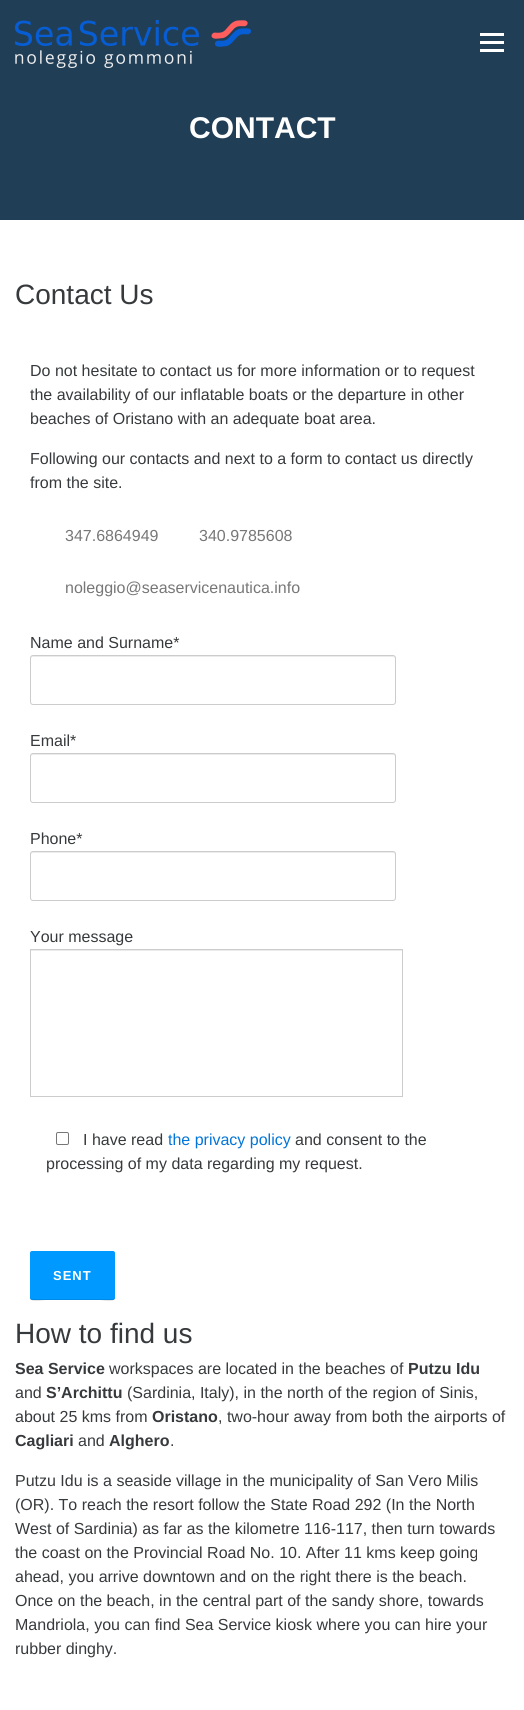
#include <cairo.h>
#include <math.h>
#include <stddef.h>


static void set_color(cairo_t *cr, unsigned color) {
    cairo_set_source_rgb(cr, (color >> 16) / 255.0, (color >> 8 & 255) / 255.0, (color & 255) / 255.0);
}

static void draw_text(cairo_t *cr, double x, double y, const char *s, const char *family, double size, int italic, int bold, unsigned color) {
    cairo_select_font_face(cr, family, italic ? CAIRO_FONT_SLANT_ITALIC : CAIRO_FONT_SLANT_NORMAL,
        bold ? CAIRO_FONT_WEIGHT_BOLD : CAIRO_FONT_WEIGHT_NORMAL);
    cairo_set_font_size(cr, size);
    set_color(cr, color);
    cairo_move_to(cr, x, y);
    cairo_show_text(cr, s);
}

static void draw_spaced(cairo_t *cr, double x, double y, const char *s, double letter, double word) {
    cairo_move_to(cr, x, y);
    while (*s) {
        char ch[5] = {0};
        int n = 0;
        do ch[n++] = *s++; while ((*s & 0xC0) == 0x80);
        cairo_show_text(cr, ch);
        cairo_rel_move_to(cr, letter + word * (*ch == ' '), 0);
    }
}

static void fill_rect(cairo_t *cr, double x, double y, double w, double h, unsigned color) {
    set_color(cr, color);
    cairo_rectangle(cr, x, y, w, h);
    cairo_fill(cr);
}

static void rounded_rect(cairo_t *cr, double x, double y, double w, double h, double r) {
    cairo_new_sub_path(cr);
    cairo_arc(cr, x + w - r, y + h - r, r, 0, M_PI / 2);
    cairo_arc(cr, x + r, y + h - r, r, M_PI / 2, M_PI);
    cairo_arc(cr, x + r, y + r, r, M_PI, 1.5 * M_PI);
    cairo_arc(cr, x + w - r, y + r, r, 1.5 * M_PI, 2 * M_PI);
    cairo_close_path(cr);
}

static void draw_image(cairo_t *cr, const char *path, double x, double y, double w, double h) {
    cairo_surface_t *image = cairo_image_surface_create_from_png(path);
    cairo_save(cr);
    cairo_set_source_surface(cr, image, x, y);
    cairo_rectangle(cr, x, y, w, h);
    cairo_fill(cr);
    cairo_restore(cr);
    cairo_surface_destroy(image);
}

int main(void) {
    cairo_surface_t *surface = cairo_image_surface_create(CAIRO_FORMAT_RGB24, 524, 1710);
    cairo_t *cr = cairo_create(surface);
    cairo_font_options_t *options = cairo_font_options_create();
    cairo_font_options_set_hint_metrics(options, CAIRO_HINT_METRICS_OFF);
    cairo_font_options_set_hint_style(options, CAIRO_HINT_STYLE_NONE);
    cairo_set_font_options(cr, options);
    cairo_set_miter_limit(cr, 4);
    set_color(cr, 0xFFFFFF);
    cairo_paint(cr);
    fill_rect(cr, 0, 0, 524, 220, 0x213E57);
    draw_image(cr, "assets/img1.png", 15, 20, 236, 48);
    fill_rect(cr, 480, 41, 24, 3, 0xFFFFFF);
    fill_rect(cr, 480, 33, 24, 3, 0xFFFFFF);
    fill_rect(cr, 480, 49, 24, 3, 0xFFFFFF);
    draw_text(cr, 189, 138, "CONTACT", "Liberation Sans", 30, 0, 1, 0xFFFFFF);
    draw_text(cr, 15, 304, "Contact Us", "Liberation Sans", 28, 0, 0, 0x373A3C);
    draw_text(cr, 30, 376, "Do not hesitate to contact us for more information or to request", "Liberation Sans", 16, 0, 0, 0x373A3C);
    draw_text(cr, 30, 400, "the availability of our inflatable boats or the departure in other", "Liberation Sans", 16, 0, 0, 0x373A3C);
    draw_text(cr, 30, 424, "beaches of Oristano with an adequate boat area.", "Liberation Sans", 16, 0, 0, 0x373A3C);
    draw_text(cr, 30, 464, "Following our contacts and next to a form to contact us directly", "Liberation Sans", 16, 0, 0, 0x373A3C);
    draw_text(cr, 30, 488, "from the site.", "Liberation Sans", 16, 0, 0, 0x373A3C);
    draw_text(cr, 65, 541, "347.6864949", "Liberation Sans", 16, 0, 0, 0x777777);
    draw_text(cr, 199, 541, "340.9785608", "Liberation Sans", 16, 0, 0, 0x777777);
    draw_text(cr, 65, 593, "noleggio@seaservicenautica.info", "Liberation Sans", 16, 0, 0, 0x777777);
    draw_text(cr, 30, 648, "Name and Surname*", "Liberation Sans", 16, 0, 0, 0x373A3C);
    set_color(cr, 0xEBEBEB);
    cairo_new_path(cr);
    cairo_move_to(cr, 33, 657);
    cairo_line_to(cr, 393, 657);
    cairo_curve_to(cr, 394, 657, 395, 658, 395, 659);
    cairo_curve_to(cr, 395, 658, 395, 656, 393, 656);
    cairo_line_to(cr, 33, 656);
    cairo_curve_to(cr, 31, 656, 31, 658, 31, 659);
    cairo_curve_to(cr, 31, 658, 32, 657, 33, 657);
    cairo_close_path(cr);
    cairo_fill(cr);
    rounded_rect(cr, 30.5, 655.5, 365, 49, 2.5);
    set_color(cr, 0xCCCCCC);
    cairo_set_line_width(cr, 1);
    cairo_stroke(cr);
    draw_text(cr, 30, 746, "Email*", "Liberation Sans", 16, 0, 0, 0x373A3C);
    set_color(cr, 0xEBEBEB);
    cairo_new_path(cr);
    cairo_move_to(cr, 33, 755);
    cairo_line_to(cr, 393, 755);
    cairo_curve_to(cr, 394, 755, 395, 756, 395, 757);
    cairo_curve_to(cr, 395, 756, 395, 754, 393, 754);
    cairo_line_to(cr, 33, 754);
    cairo_curve_to(cr, 31, 754, 31, 756, 31, 757);
    cairo_curve_to(cr, 31, 756, 32, 755, 33, 755);
    cairo_close_path(cr);
    cairo_fill(cr);
    rounded_rect(cr, 30.5, 753.5, 365, 49, 2.5);
    set_color(cr, 0xCCCCCC);
    cairo_stroke(cr);
    draw_text(cr, 30, 844, "Phone*", "Liberation Sans", 16, 0, 0, 0x373A3C);
    set_color(cr, 0xEBEBEB);
    cairo_new_path(cr);
    cairo_move_to(cr, 33, 853);
    cairo_line_to(cr, 393, 853);
    cairo_curve_to(cr, 394, 853, 395, 854, 395, 855);
    cairo_curve_to(cr, 395, 854, 395, 852, 393, 852);
    cairo_line_to(cr, 33, 852);
    cairo_curve_to(cr, 31, 852, 31, 854, 31, 855);
    cairo_curve_to(cr, 31, 854, 32, 853, 33, 853);
    cairo_close_path(cr);
    cairo_fill(cr);
    rounded_rect(cr, 30.5, 851.5, 365, 49, 2.5);
    set_color(cr, 0xCCCCCC);
    cairo_stroke(cr);
    draw_text(cr, 30, 942, "Your message", "Liberation Sans", 16, 0, 0, 0x373A3C);
    fill_rect(cr, 31, 950, 371, 1, 0xEBEBEB);
    cairo_rectangle(cr, 30.5, 949.5, 372, 147);
    set_color(cr, 0xCCCCCC);
    cairo_stroke(cr);
    rounded_rect(cr, 56.5, 1132.5, 12, 12, 1.5);
    set_color(cr, 0x767676);
    cairo_stroke(cr);
    draw_text(cr, 83, 1145, "I have read", "Liberation Sans", 16, 0, 0, 0x373A3C);
    draw_text(cr, 168, 1145, "the privacy policy", "Liberation Sans", 16, 0, 0, 0x0275D8);
    draw_text(cr, 295, 1145, "and consent to the", "Liberation Sans", 16, 0, 0, 0x373A3C);
    draw_text(cr, 46, 1169, "processing of my data regarding my request.", "Liberation Sans", 16, 0, 0, 0x373A3C);
    set_color(cr, 0x0099FF);
    rounded_rect(cr, 30, 1251, 85, 49, 2);
    cairo_fill(cr);
    cairo_set_source_rgba(cr, 0, 0, 0, 0.1);
    cairo_new_path(cr);
    cairo_move_to(cr, 30, 1297);
    cairo_curve_to(cr, 30, 1304, 43, 1300, 46, 1300);
    cairo_line_to(cr, 100, 1300);
    cairo_curve_to(cr, 102, 1300, 115, 1304, 115, 1297);
    cairo_curve_to(cr, 115, 1298, 114, 1299, 113, 1299);
    cairo_line_to(cr, 32, 1299);
    cairo_curve_to(cr, 31, 1299, 30, 1298, 30, 1297);
    cairo_close_path(cr);
    cairo_fill(cr);
    cairo_select_font_face(cr, "Liberation Sans", CAIRO_FONT_SLANT_NORMAL, CAIRO_FONT_WEIGHT_BOLD);
    cairo_set_font_size(cr, 13);
    set_color(cr, 0xFFFFFF);
    draw_spaced(cr, 53, 1280, "SENT", 1, 0);
    draw_text(cr, 15, 1343, "How to find us", "Liberation Sans", 28, 0, 0, 0x373A3C);
    draw_text(cr, 15, 1374, "Sea Service", "Liberation Sans", 16, 0, 1, 0x373A3C);
    draw_text(cr, 109, 1374, "workspaces are located in the beaches of", "Liberation Sans", 16, 0, 0, 0x373A3C);
    draw_text(cr, 408, 1374, "Putzu Idu", "Liberation Sans", 16, 0, 1, 0x373A3C);
    draw_text(cr, 15, 1398, "and", "Liberation Sans", 16, 0, 0, 0x373A3C);
    draw_text(cr, 46, 1398, "S’Archittu", "Liberation Sans", 16, 0, 1, 0x373A3C);
    draw_text(cr, 127, 1398, "(Sardinia, Italy), in the north of the region of Sinis,", "Liberation Sans", 16, 0, 0, 0x373A3C);
    draw_text(cr, 15, 1422, "about 25 kms from", "Liberation Sans", 16, 0, 0, 0x373A3C);
    draw_text(cr, 152, 1422, "Oristano", "Liberation Sans", 16, 0, 1, 0x373A3C);
    draw_text(cr, 218, 1422, ", two-hour away from both the airports of", "Liberation Sans", 16, 0, 0, 0x373A3C);
    draw_text(cr, 15, 1446, "Cagliari", "Liberation Sans", 16, 0, 1, 0x373A3C);
    draw_text(cr, 78, 1446, "and", "Liberation Sans", 16, 0, 0, 0x373A3C);
    draw_text(cr, 109, 1446, "Alghero", "Liberation Sans", 16, 0, 1, 0x373A3C);
    draw_text(cr, 170, 1446, ".", "Liberation Sans", 16, 0, 0, 0x373A3C);
    draw_text(cr, 15, 1486, "Putzu Idu is a seaside village in the municipality of San Vero Milis", "Liberation Sans", 16, 0, 0, 0x373A3C);
    draw_text(cr, 15, 1510, "(OR). To reach the resort follow the State Road 292 (In the North", "Liberation Sans", 16, 0, 0, 0x373A3C);
    draw_text(cr, 15, 1534, "West of Sardinia) as far as the kilometre 116-117, then turn towards", "Liberation Sans", 16, 0, 0, 0x373A3C);
    draw_text(cr, 15, 1558, "the coast on the Provincial Road No. 10. After 11 kms keep going", "Liberation Sans", 16, 0, 0, 0x373A3C);
    draw_text(cr, 15, 1582, "ahead, you arrive downtown and on the right there is the beach.", "Liberation Sans", 16, 0, 0, 0x373A3C);
    draw_text(cr, 15, 1606, "Once on the beach, in the central part of the sandy shore, towards", "Liberation Sans", 16, 0, 0, 0x373A3C);
    draw_text(cr, 15, 1630, "Mandriola, you can find Sea Service kiosk where you can hire your", "Liberation Sans", 16, 0, 0, 0x373A3C);
    draw_text(cr, 15, 1654, "rubber dinghy.", "Liberation Sans", 16, 0, 0, 0x373A3C);
    cairo_surface_write_to_png(surface, "output.png");
    cairo_font_options_destroy(options);
    cairo_destroy(cr);
    cairo_surface_destroy(surface);
    return 0;
}
